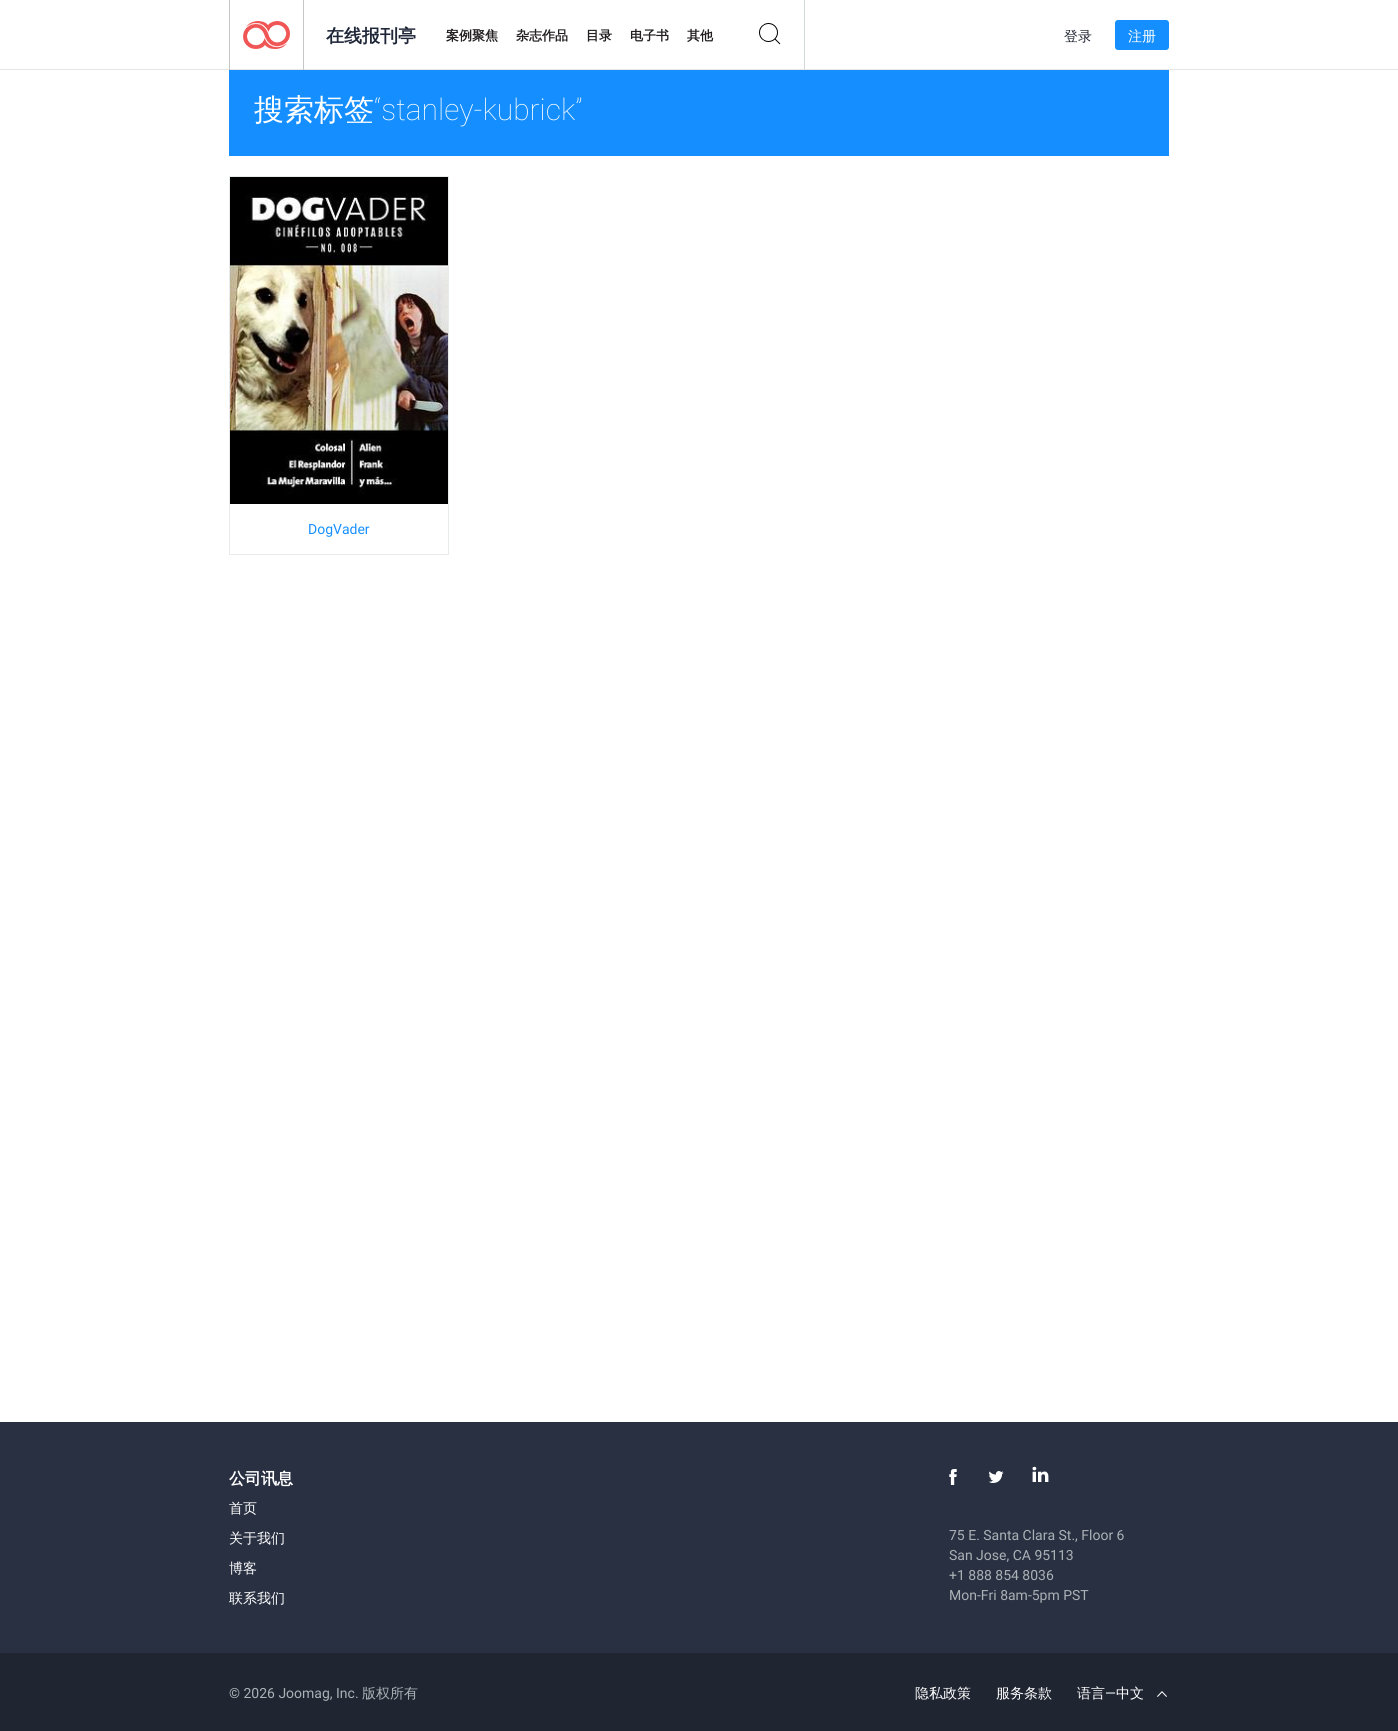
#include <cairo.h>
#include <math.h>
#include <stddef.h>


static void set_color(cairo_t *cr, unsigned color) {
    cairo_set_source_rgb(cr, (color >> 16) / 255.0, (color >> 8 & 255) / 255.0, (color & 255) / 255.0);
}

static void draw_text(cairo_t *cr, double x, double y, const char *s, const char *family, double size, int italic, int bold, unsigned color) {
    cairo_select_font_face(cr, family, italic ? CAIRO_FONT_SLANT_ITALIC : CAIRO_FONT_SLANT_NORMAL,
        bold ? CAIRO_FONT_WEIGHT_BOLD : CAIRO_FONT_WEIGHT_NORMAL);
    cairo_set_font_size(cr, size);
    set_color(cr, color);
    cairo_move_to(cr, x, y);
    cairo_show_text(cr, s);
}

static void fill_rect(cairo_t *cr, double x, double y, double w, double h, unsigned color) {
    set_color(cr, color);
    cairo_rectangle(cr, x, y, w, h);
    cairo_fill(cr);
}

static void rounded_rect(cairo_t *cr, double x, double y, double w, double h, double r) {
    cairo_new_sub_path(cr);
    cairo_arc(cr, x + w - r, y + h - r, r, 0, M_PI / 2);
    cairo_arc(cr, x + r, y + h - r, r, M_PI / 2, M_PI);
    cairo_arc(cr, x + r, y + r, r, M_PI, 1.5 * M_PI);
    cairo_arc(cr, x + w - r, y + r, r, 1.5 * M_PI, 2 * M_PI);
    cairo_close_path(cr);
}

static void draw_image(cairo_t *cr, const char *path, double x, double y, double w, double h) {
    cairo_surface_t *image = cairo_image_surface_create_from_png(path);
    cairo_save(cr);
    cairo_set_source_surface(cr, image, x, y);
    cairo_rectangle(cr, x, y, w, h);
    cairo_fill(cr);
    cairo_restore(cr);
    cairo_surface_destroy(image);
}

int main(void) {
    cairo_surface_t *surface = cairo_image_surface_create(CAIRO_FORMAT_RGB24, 1398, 1731);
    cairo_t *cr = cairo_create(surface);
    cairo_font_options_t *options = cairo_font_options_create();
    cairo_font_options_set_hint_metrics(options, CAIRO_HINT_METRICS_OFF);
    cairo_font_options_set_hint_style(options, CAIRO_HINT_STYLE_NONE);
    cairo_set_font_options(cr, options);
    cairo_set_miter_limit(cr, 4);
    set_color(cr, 0xFFFFFF);
    cairo_paint(cr);
    fill_rect(cr, 0, 69, 1398, 1, 0xE5E5E5);
    fill_rect(cr, 303, 0, 1, 70, 0xC6C6C6);
    fill_rect(cr, 229, 0, 1, 70, 0xC6C6C6);
    draw_image(cr, "assets/img1.png", 243, 21, 47, 28);
    draw_text(cr, 326, 42, "在线报刊亭", "WenQuanYi Zen Hei", 18, 0, 1, 0x1E2638);
    draw_text(cr, 446, 40, "案例聚焦", "WenQuanYi Zen Hei", 13, 0, 1, 0x231F20);
    draw_text(cr, 516, 40, "杂志作品", "WenQuanYi Zen Hei", 13, 0, 1, 0x231F20);
    draw_text(cr, 586, 40, "目录", "WenQuanYi Zen Hei", 13, 0, 1, 0x231F20);
    draw_text(cr, 630, 40, "电子书", "WenQuanYi Zen Hei", 13, 0, 1, 0x231F20);
    draw_text(cr, 687, 40, "其他", "WenQuanYi Zen Hei", 13, 0, 1, 0x231F20);
    fill_rect(cr, 804, 0, 1, 69, 0xD2D7D9);
    draw_image(cr, "assets/img2.png", 759, 23, 22, 22);
    draw_text(cr, 1064, 41, "登录", "WenQuanYi Zen Hei Medium", 14, 0, 0, 0x202532);
    set_color(cr, 0x158FFF);
    rounded_rect(cr, 1115, 20, 54, 30, 3);
    cairo_fill(cr);
    draw_text(cr, 1128, 41, "注册", "WenQuanYi Zen Hei Medium", 14, 0, 0, 0xFFFFFF);
    fill_rect(cr, 229, 70, 940, 86, 0x158FFF);
    draw_text(cr, 254, 120, "搜索标签", "WenQuanYi Zen Hei Medium", 30, 0, 0, 0xFFFFFF);
    draw_text(cr, 374, 120, "“stanley-kubrick”", "Roboto Thin", 30, 0, 0, 0xFFFFFF);
    cairo_rectangle(cr, 229.5, 176.5, 219, 378);
    set_color(cr, 0xE8EBEB);
    cairo_set_line_width(cr, 1);
    cairo_stroke(cr);
    draw_image(cr, "assets/img3.png", 230, 177, 218, 327);
    draw_text(cr, 308, 534, "DogVader", "Roboto", 14, 0, 0, 0x158FFF);
    fill_rect(cr, 0, 1422, 1398, 231, 0x293042);
    draw_text(cr, 229, 1484, "公司讯息", "WenQuanYi Zen Hei", 16, 0, 1, 0xFFFFFF);
    draw_text(cr, 229, 1513, "首页", "WenQuanYi Zen Hei Medium", 14, 0, 0, 0xFFFFFF);
    draw_text(cr, 229, 1543, "关于我们", "WenQuanYi Zen Hei Medium", 14, 0, 0, 0xFFFFFF);
    draw_text(cr, 229, 1573, "博客", "WenQuanYi Zen Hei Medium", 14, 0, 0, 0xFFFFFF);
    draw_text(cr, 229, 1603, "联系我们", "WenQuanYi Zen Hei Medium", 14, 0, 0, 0xFFFFFF);
    draw_image(cr, "assets/img4.png", 949, 1469, 8, 16);
    draw_image(cr, "assets/img5.png", 988, 1471, 16, 12);
    draw_image(cr, "assets/img6.png", 1032, 1466, 17, 16);
    draw_text(cr, 949, 1540, "75 E. Santa Clara St., Floor 6", "Roboto", 14, 0, 0, 0xABB2B6);
    draw_text(cr, 949, 1560, "San Jose, CA 95113", "Roboto", 14, 0, 0, 0xABB2B6);
    draw_text(cr, 949, 1580, "+1 888 854 8036", "Roboto", 14, 0, 0, 0xABB2B6);
    draw_text(cr, 949, 1600, "Mon-Fri 8am-5pm PST", "Roboto", 14, 0, 0, 0xABB2B6);
    fill_rect(cr, 0, 1653, 1398, 78, 0x202532);
    draw_text(cr, 229, 1698, "© 2026 Joomag, Inc.", "Roboto", 14, 0, 0, 0xABB2B6);
    draw_text(cr, 362, 1698, "版权所有", "WenQuanYi Zen Hei Medium", 14, 0, 0, 0xABB2B6);
    draw_text(cr, 915, 1698, "隐私政策", "WenQuanYi Zen Hei Medium", 14, 0, 0, 0xFFFFFF);
    draw_text(cr, 996, 1698, "服务条款", "WenQuanYi Zen Hei Medium", 14, 0, 0, 0xFFFFFF);
    draw_text(cr, 1077, 1698, "语言", "WenQuanYi Zen Hei Medium", 14, 0, 0, 0xFFFFFF);
    draw_text(cr, 1105, 1698, "—", "Roboto", 14, 0, 0, 0xFFFFFF);
    draw_text(cr, 1116, 1698, "中文", "WenQuanYi Zen Hei Medium", 14, 0, 0, 0xFFFFFF);
    draw_image(cr, "assets/img7.png", 1157, 1691, 10, 6);
    cairo_surface_write_to_png(surface, "output.png");
    cairo_font_options_destroy(options);
    cairo_destroy(cr);
    cairo_surface_destroy(surface);
    return 0;
}
